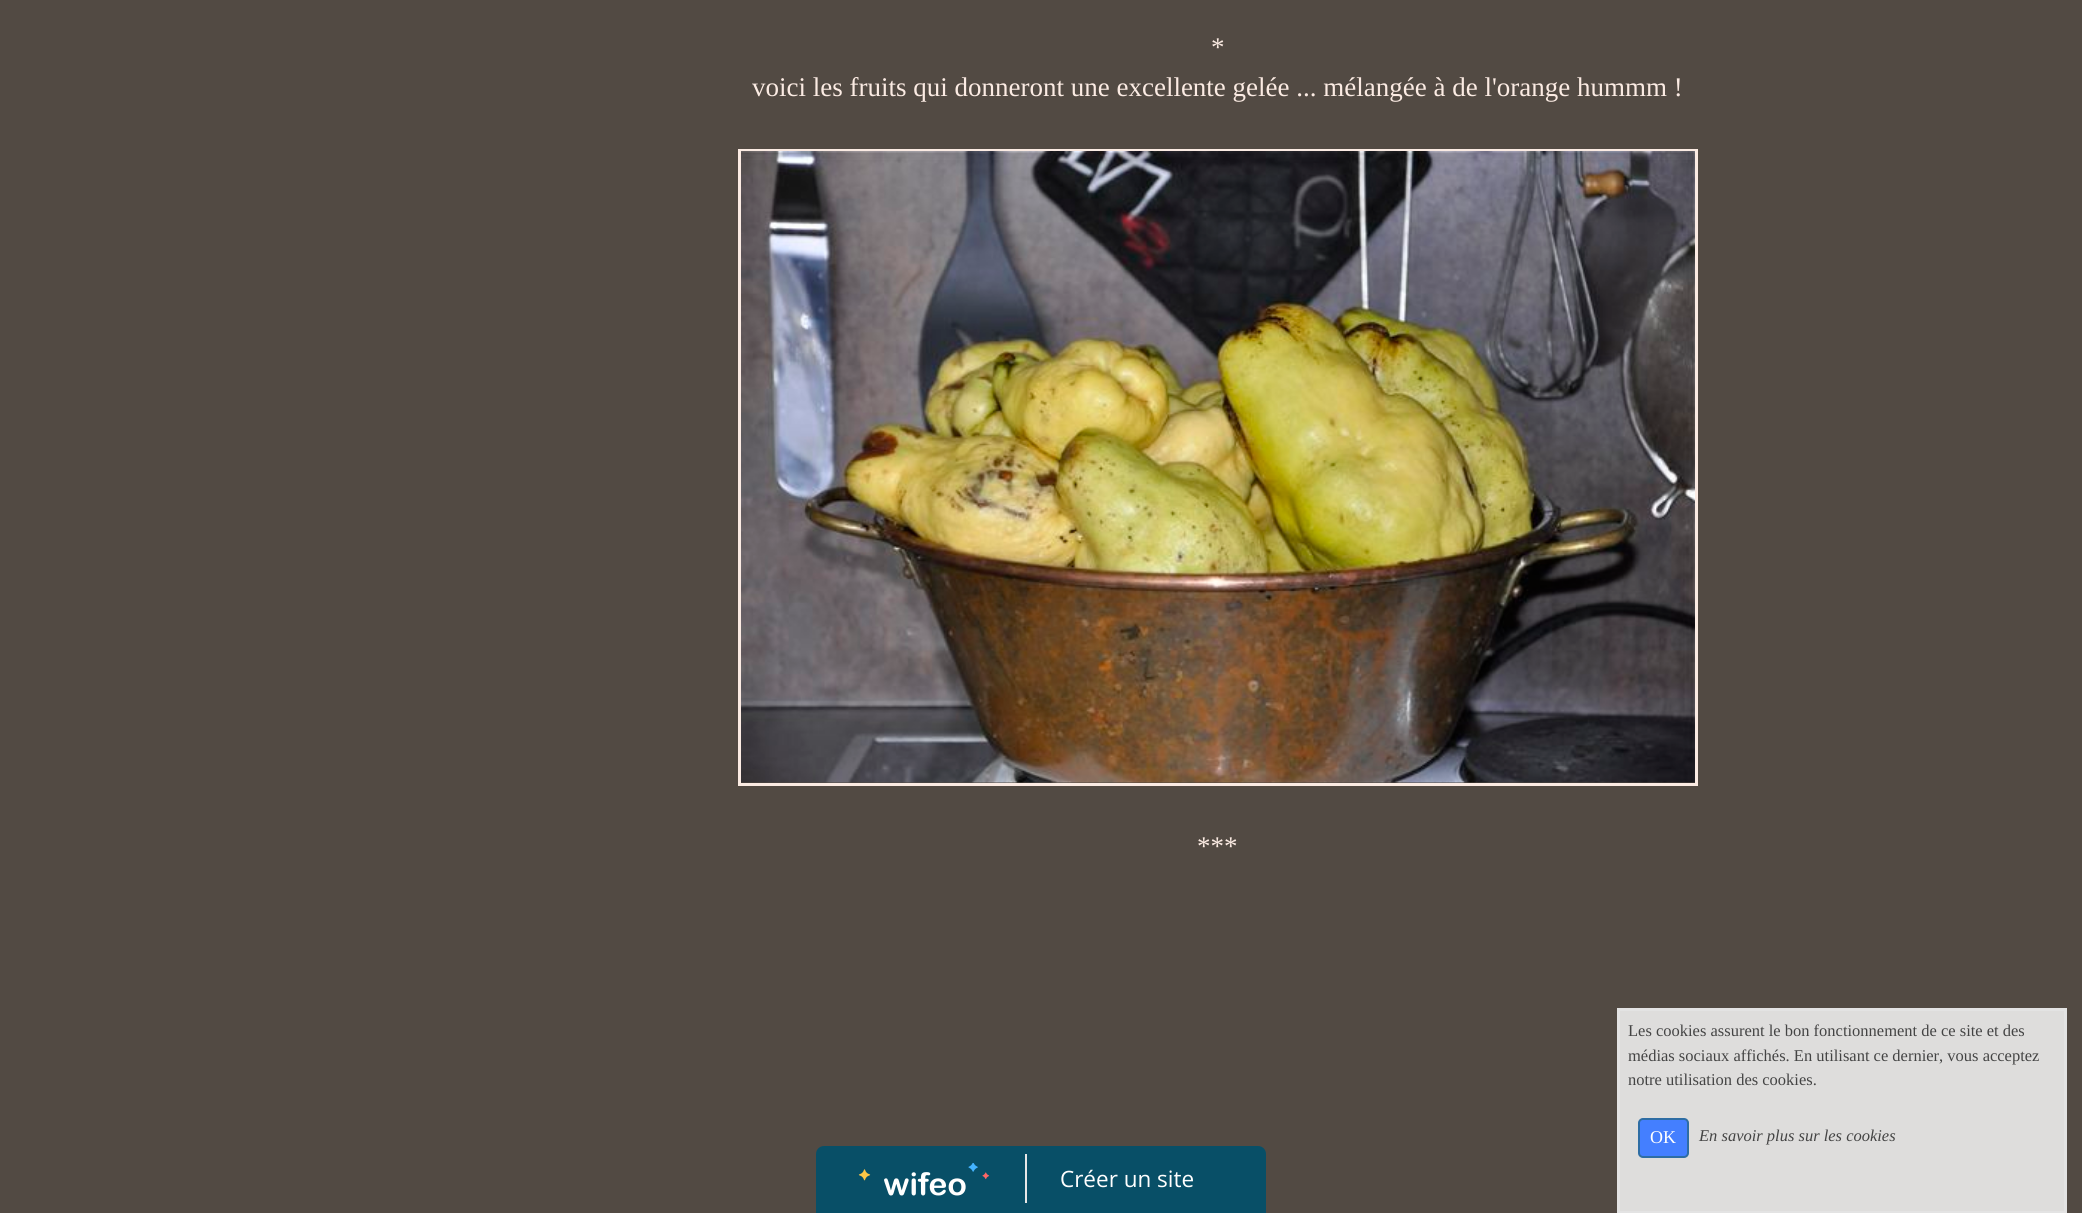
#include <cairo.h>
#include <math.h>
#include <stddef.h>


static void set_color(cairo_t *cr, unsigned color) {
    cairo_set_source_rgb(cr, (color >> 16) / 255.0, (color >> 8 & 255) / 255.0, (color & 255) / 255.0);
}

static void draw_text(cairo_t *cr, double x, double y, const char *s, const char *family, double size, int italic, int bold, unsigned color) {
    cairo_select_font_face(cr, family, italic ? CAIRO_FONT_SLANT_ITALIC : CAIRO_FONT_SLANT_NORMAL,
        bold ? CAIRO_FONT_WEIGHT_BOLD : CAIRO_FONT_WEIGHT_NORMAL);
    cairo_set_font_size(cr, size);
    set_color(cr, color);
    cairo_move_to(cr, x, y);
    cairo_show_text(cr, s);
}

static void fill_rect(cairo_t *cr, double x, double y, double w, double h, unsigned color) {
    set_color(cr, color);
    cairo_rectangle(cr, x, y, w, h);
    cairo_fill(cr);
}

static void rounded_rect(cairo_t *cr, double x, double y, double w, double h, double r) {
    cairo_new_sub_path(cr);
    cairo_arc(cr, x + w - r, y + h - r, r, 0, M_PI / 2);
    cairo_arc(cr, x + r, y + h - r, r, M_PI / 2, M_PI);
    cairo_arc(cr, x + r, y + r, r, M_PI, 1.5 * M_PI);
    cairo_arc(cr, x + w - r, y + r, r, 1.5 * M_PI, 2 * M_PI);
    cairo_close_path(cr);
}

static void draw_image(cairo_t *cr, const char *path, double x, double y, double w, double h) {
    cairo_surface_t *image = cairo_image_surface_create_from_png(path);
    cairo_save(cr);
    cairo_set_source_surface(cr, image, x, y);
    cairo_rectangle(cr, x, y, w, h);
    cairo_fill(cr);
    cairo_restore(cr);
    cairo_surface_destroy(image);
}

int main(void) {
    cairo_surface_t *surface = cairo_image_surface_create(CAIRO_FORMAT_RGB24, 2082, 1213);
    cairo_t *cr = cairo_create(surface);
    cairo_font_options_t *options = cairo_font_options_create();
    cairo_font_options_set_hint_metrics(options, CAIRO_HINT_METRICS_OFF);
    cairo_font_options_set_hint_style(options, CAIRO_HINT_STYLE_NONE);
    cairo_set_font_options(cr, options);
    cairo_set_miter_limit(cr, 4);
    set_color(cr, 0x524A43);
    cairo_paint(cr);
    draw_text(cr, 1211, 56, "*", "Liberation Serif", 27, 0, 0, 0xFBEBE3);
    draw_text(cr, 752, 96, "voici les fruits qui donneront une excellente gelée ... mélangée à de l'orange hummm !", "Liberation Serif", 27, 0, 0, 0xFBEBE3);
    cairo_rectangle(cr, 739.5, 150.5, 957, 634);
    cairo_set_line_width(cr, 3);
    cairo_stroke(cr);
    draw_image(cr, "assets/img1.png", 741, 151, 954, 632);
    draw_text(cr, 1197, 855, "***", "Liberation Serif", 27, 0, 0, 0xFBEBE3);
    set_color(cr, 0xDEDDDC);
    cairo_rectangle(cr, 1618.5, 1009.5, 447, 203);
    cairo_fill_preserve(cr);
    set_color(cr, 0xE3E3E3);
    cairo_stroke(cr);
    draw_text(cr, 1628, 1036, "Les cookies assurent le bon fonctionnement de ce site et des", "Liberation Serif", 16.5, 0, 0, 0x444444);
    draw_text(cr, 1628, 1061, "médias sociaux affichés. En utilisant ce dernier, vous acceptez", "Liberation Serif", 16.5, 0, 0, 0x444444);
    draw_text(cr, 1628, 1085, "notre utilisation des cookies.", "Liberation Serif", 16.5, 0, 0, 0x444444);
    set_color(cr, 0x447FFF);
    rounded_rect(cr, 1639, 1119, 49, 38, 4);
    cairo_fill_preserve(cr);
    set_color(cr, 0x2E6DA4);
    cairo_set_line_width(cr, 2);
    cairo_stroke(cr);
    draw_text(cr, 1650, 1143, "OK", "Liberation Serif", 18, 0, 0, 0xFFFFFF);
    draw_text(cr, 1699, 1141, "En savoir plus sur les cookies", "Liberation Serif", 16.5, 1, 0, 0x444444);
    set_color(cr, 0x084F67);
    cairo_new_path(cr);
    cairo_move_to(cr, 824, 1146);
    cairo_line_to(cr, 1258, 1146);
    cairo_curve_to(cr, 1262.5, 1146, 1266, 1149.5, 1266, 1154);
    cairo_line_to(cr, 1266, 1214);
    cairo_line_to(cr, 816, 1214);
    cairo_line_to(cr, 816, 1154);
    cairo_curve_to(cr, 816, 1149.5, 819.5, 1146, 824, 1146);
    cairo_close_path(cr);
    cairo_fill(cr);
    fill_rect(cr, 1025, 1154, 2, 49, 0xE7E7E7);
    draw_image(cr, "assets/img2.png", 858, 1163, 132, 33);
    draw_text(cr, 1060, 1187, "Créer un site", "Open Sans", 22.5, 0, 0, 0xFFFFFF);
    cairo_surface_write_to_png(surface, "output.png");
    cairo_font_options_destroy(options);
    cairo_destroy(cr);
    cairo_surface_destroy(surface);
    return 0;
}
